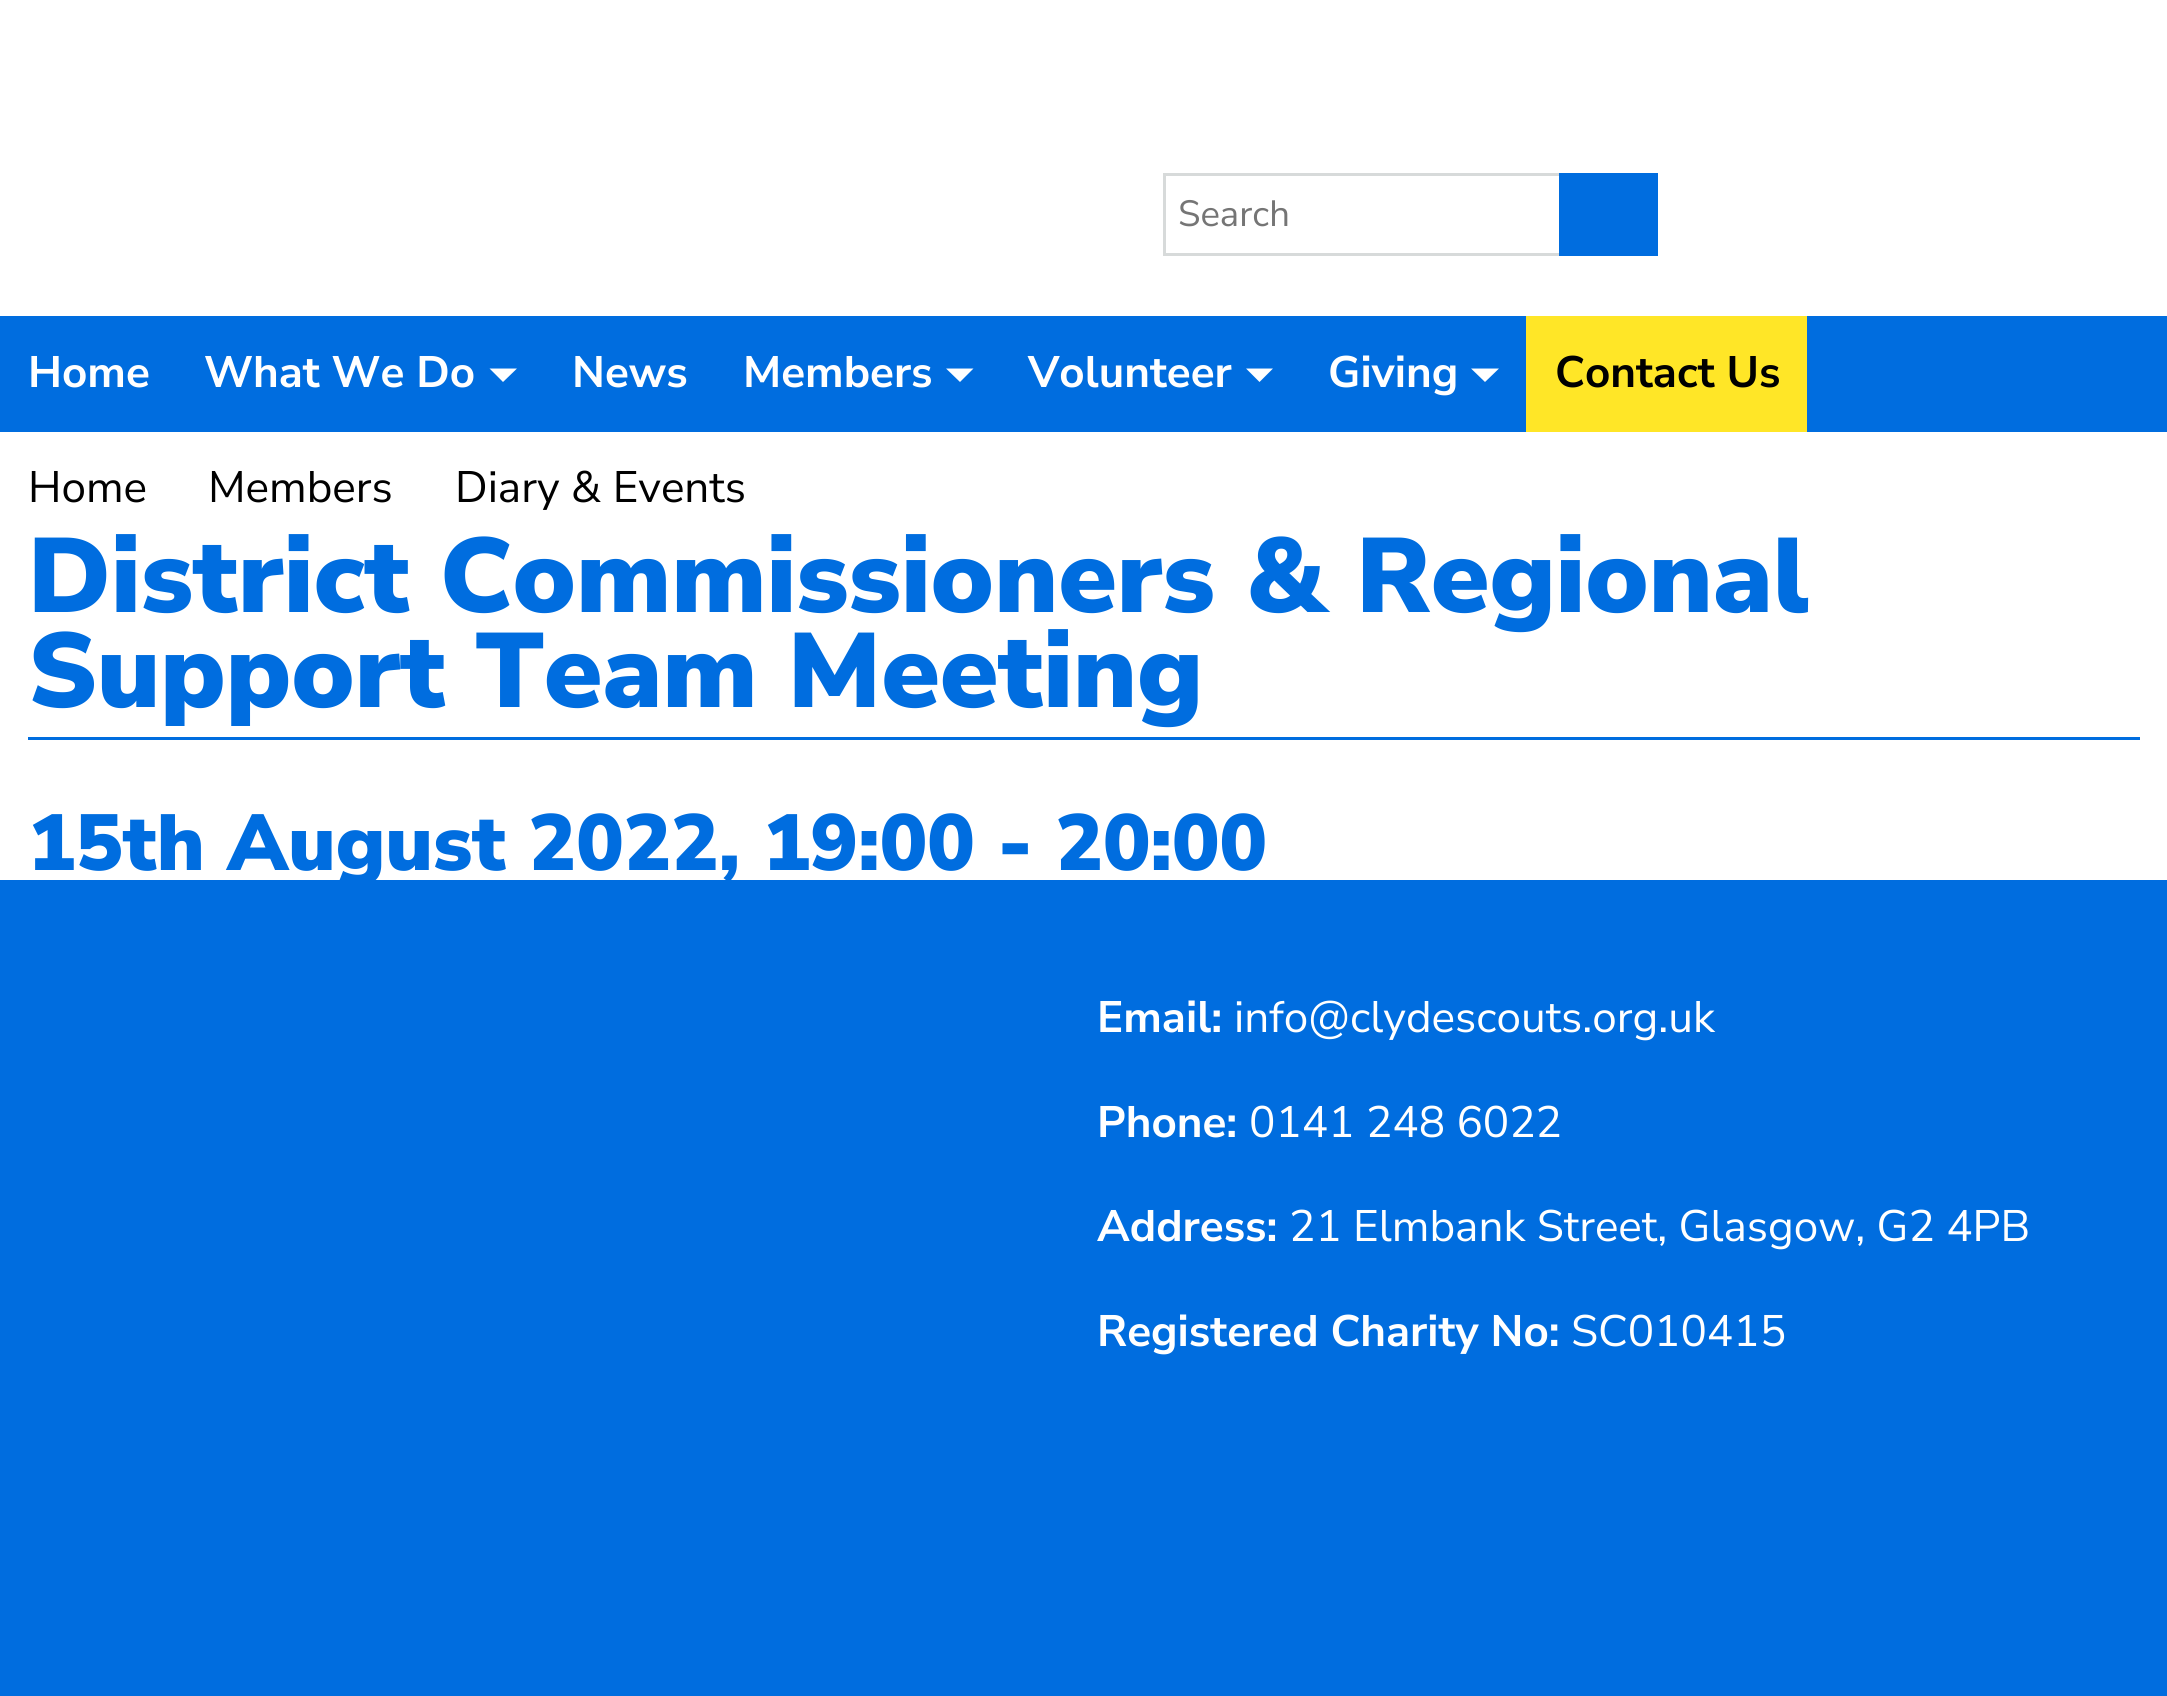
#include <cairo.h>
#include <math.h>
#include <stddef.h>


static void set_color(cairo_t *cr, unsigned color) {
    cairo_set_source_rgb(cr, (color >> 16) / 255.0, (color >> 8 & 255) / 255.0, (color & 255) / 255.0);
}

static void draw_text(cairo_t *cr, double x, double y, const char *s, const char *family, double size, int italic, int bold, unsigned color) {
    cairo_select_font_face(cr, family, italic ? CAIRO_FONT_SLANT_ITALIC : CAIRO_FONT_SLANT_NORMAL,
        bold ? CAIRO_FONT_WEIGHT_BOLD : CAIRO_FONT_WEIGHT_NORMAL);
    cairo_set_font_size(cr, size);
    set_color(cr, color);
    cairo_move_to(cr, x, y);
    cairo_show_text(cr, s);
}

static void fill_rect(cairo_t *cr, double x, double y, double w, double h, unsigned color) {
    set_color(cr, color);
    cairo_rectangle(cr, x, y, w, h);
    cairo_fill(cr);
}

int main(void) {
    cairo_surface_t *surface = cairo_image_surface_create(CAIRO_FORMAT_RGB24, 2167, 1696);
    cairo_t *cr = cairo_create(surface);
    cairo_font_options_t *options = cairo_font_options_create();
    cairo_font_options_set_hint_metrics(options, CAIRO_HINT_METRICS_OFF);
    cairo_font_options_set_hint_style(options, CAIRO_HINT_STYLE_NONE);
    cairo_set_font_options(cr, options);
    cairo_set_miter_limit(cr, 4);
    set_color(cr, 0x006DDF);
    cairo_paint(cr);
    fill_rect(cr, 0, 0, 2167, 316, 0xFFFFFF);
    fill_rect(cr, 1163, 173, 396, 3, 0xD7DADA);
    fill_rect(cr, 1163, 253, 396, 3, 0xD7DADA);
    fill_rect(cr, 1163, 173, 3, 83, 0xD7DADA);
    draw_text(cr, 1178, 226, "Search", "Nunito Sans", 36.5, 0, 0, 0x757575);
    fill_rect(cr, 1559, 173, 99, 83, 0x006DDF);
    draw_text(cr, 28, 387, "Home", "Nunito Sans", 44, 0, 1, 0xFFFFFF);
    draw_text(cr, 204, 387, "What We Do", "Nunito Sans", 44, 0, 1, 0xFFFFFF);
    cairo_new_path(cr);
    cairo_move_to(cr, 489.5, 368.5);
    cairo_line_to(cr, 517, 368.5);
    cairo_line_to(cr, 503, 382);
    cairo_close_path(cr);
    cairo_fill(cr);
    draw_text(cr, 572, 387, "News", "Nunito Sans", 44, 0, 1, 0xFFFFFF);
    draw_text(cr, 743, 387, "Members", "Nunito Sans", 44, 0, 1, 0xFFFFFF);
    cairo_new_path(cr);
    cairo_move_to(cr, 946, 368.5);
    cairo_line_to(cr, 973.5, 368.5);
    cairo_line_to(cr, 960, 382);
    cairo_close_path(cr);
    cairo_fill(cr);
    draw_text(cr, 1028, 387, "Volunteer", "Nunito Sans", 44, 0, 1, 0xFFFFFF);
    cairo_new_path(cr);
    cairo_move_to(cr, 1246, 368.5);
    cairo_line_to(cr, 1273, 368.5);
    cairo_line_to(cr, 1259.5, 382);
    cairo_close_path(cr);
    cairo_fill(cr);
    draw_text(cr, 1328, 387, "Giving", "Nunito Sans", 44, 0, 1, 0xFFFFFF);
    cairo_new_path(cr);
    cairo_move_to(cr, 1471, 368.5);
    cairo_line_to(cr, 1499, 368.5);
    cairo_line_to(cr, 1485, 382);
    cairo_close_path(cr);
    cairo_fill(cr);
    fill_rect(cr, 1526, 316, 281, 116, 0xFFE627);
    draw_text(cr, 1555, 387, "Contact Us", "Nunito Sans", 44, 0, 1, 0x000000);
    fill_rect(cr, 0, 432, 2167, 448, 0xFFFFFF);
    draw_text(cr, 28, 502, "Home", "Nunito Sans", 44, 0, 0, 0x000000);
    draw_text(cr, 208, 502, "Members", "Nunito Sans", 44, 0, 0, 0x000000);
    draw_text(cr, 455, 502, "Diary & Events", "Nunito Sans", 44, 0, 0, 0x000000);
    fill_rect(cr, 28, 737, 2112, 3, 0x006DDF);
    draw_text(cr, 28, 612, "District Commissioners & Regional", "Nunito Sans Black", 105.6, 0, 0, 0x006DDF);
    draw_text(cr, 28, 707, "Support Team Meeting", "Nunito Sans Black", 105.6, 0, 0, 0x006DDF);
    draw_text(cr, 28, 870, "15th August 2022, 19:00 - 20:00", "Nunito Sans Black", 79.25, 0, 0, 0x006DDF);
    draw_text(cr, 1097, 1032, "Email:", "Nunito Sans", 44, 0, 1, 0xFFFFFF);
    draw_text(cr, 1234, 1032, "info@clydescouts.org.uk", "Nunito Sans", 44, 0, 0, 0xFFFFFF);
    draw_text(cr, 1097, 1137, "Phone:", "Nunito Sans", 44, 0, 1, 0xFFFFFF);
    draw_text(cr, 1249, 1137, "0141 248 6022", "Nunito Sans", 44, 0, 0, 0xFFFFFF);
    draw_text(cr, 1097, 1241, "Address:", "Nunito Sans", 44, 0, 1, 0xFFFFFF);
    draw_text(cr, 1289, 1241, "21 Elmbank Street, Glasgow, G2 4PB", "Nunito Sans", 44, 0, 0, 0xFFFFFF);
    draw_text(cr, 1097, 1346, "Registered Charity No:", "Nunito Sans", 44, 0, 1, 0xFFFFFF);
    draw_text(cr, 1571, 1346, "SC010415", "Nunito Sans", 44, 0, 0, 0xFFFFFF);
    cairo_surface_write_to_png(surface, "output.png");
    cairo_font_options_destroy(options);
    cairo_destroy(cr);
    cairo_surface_destroy(surface);
    return 0;
}
